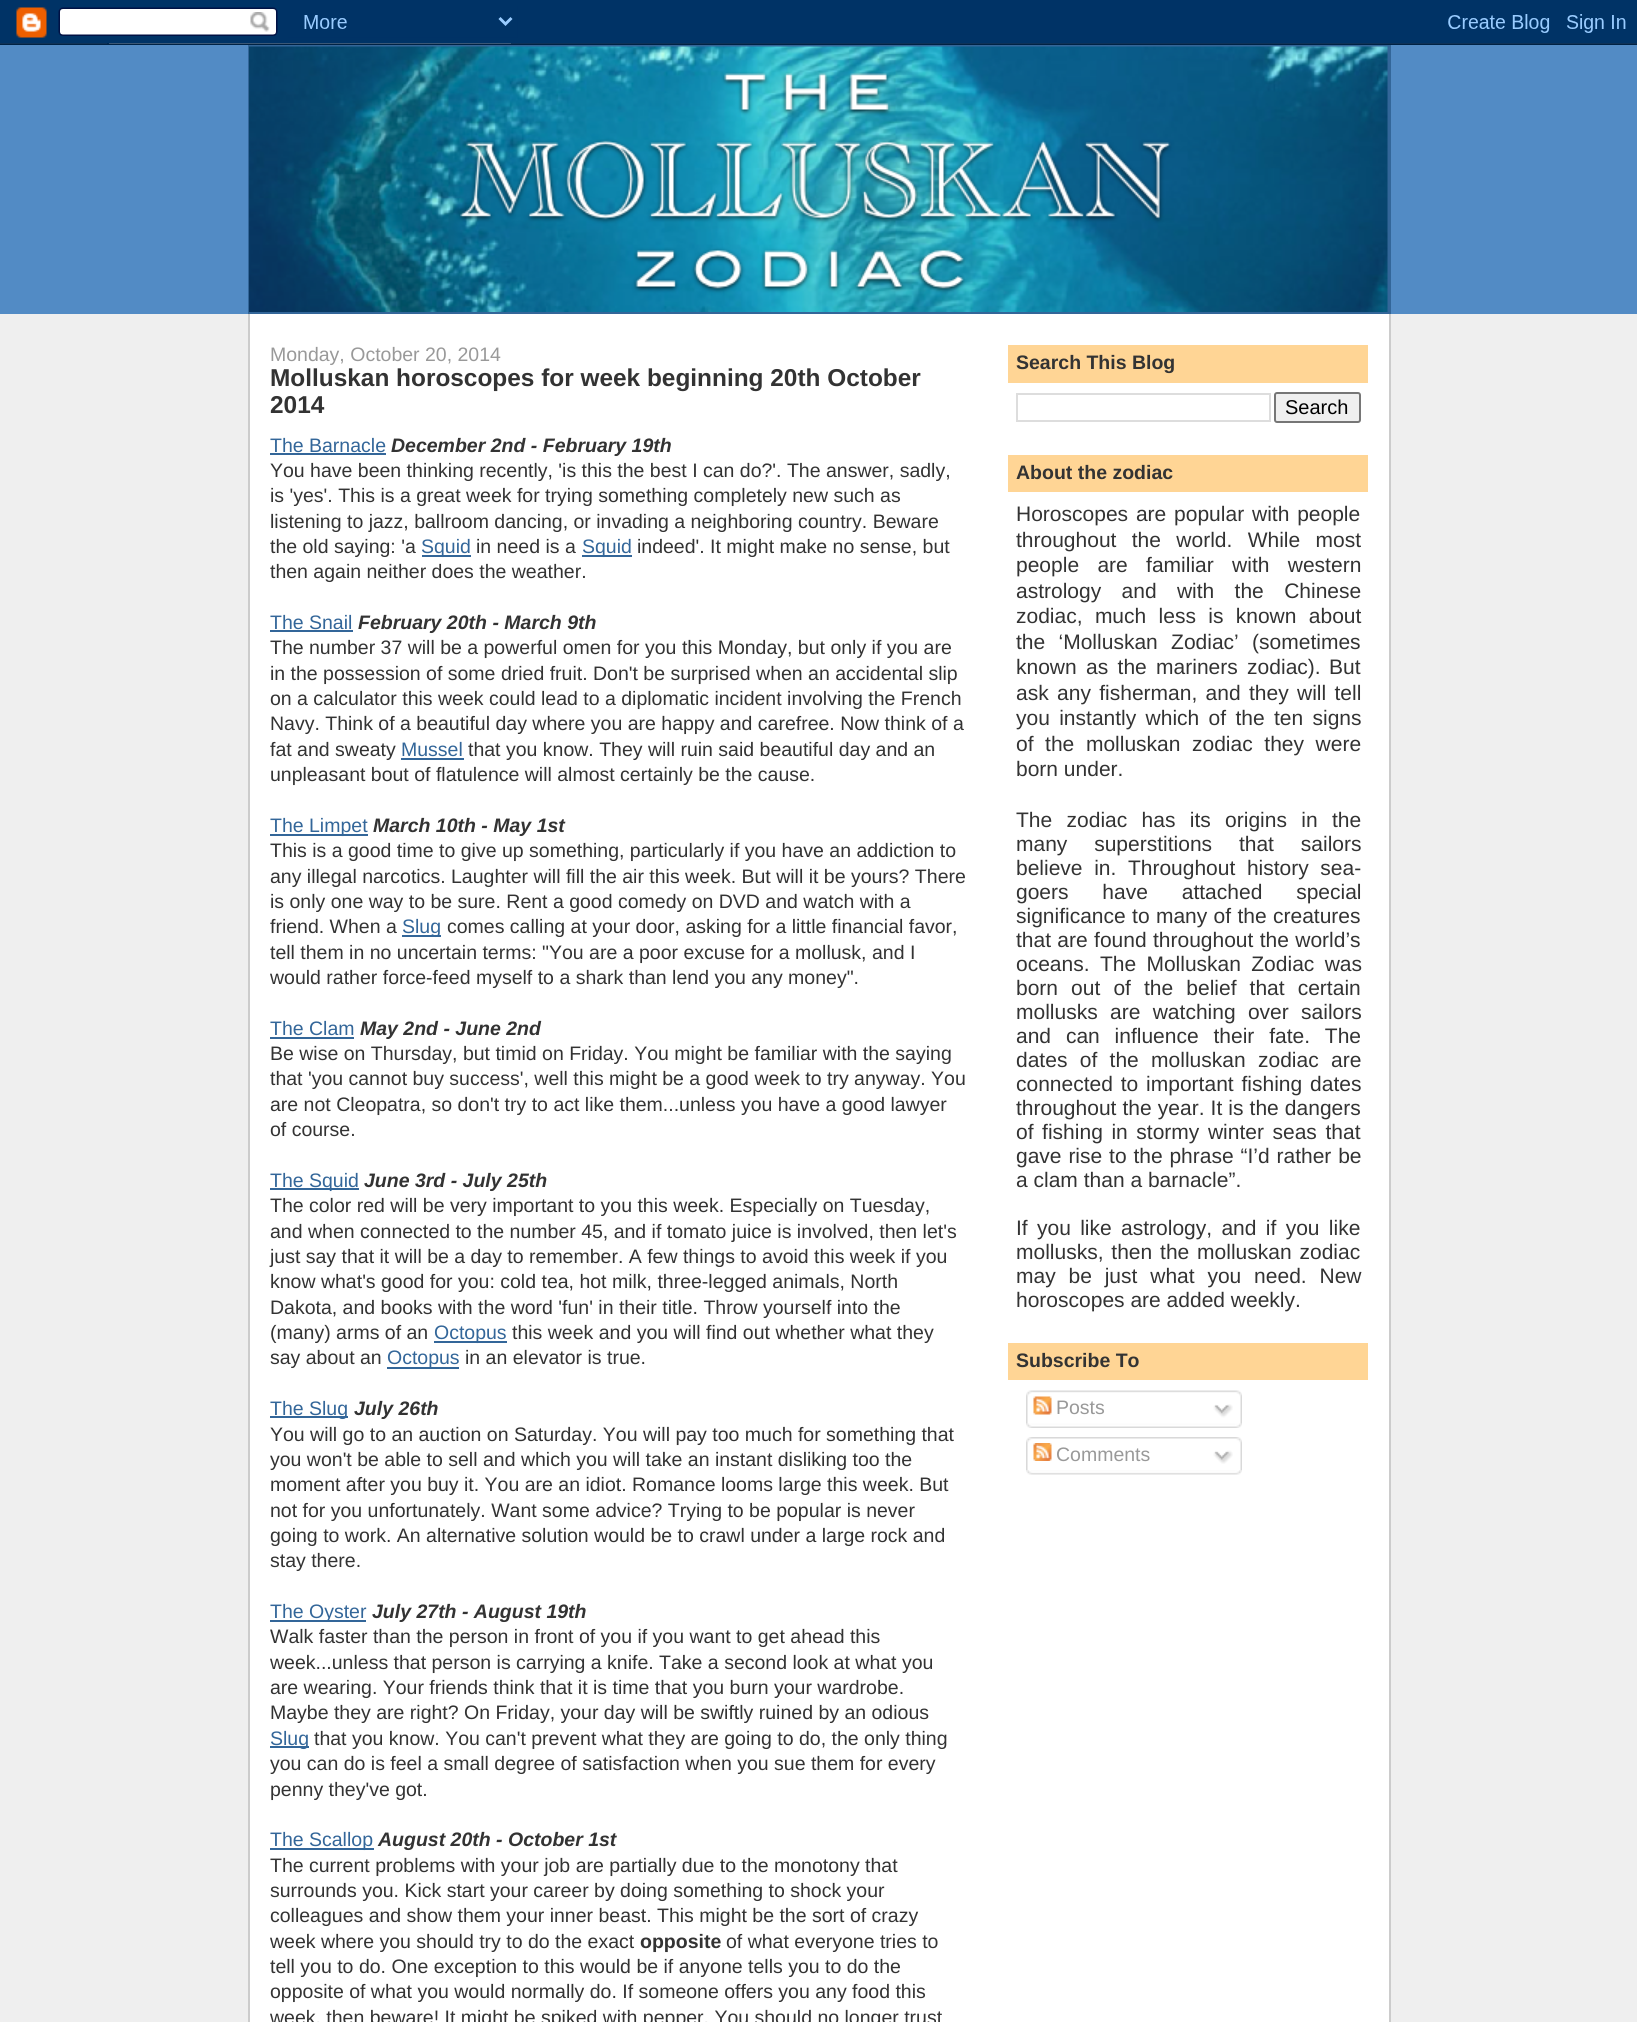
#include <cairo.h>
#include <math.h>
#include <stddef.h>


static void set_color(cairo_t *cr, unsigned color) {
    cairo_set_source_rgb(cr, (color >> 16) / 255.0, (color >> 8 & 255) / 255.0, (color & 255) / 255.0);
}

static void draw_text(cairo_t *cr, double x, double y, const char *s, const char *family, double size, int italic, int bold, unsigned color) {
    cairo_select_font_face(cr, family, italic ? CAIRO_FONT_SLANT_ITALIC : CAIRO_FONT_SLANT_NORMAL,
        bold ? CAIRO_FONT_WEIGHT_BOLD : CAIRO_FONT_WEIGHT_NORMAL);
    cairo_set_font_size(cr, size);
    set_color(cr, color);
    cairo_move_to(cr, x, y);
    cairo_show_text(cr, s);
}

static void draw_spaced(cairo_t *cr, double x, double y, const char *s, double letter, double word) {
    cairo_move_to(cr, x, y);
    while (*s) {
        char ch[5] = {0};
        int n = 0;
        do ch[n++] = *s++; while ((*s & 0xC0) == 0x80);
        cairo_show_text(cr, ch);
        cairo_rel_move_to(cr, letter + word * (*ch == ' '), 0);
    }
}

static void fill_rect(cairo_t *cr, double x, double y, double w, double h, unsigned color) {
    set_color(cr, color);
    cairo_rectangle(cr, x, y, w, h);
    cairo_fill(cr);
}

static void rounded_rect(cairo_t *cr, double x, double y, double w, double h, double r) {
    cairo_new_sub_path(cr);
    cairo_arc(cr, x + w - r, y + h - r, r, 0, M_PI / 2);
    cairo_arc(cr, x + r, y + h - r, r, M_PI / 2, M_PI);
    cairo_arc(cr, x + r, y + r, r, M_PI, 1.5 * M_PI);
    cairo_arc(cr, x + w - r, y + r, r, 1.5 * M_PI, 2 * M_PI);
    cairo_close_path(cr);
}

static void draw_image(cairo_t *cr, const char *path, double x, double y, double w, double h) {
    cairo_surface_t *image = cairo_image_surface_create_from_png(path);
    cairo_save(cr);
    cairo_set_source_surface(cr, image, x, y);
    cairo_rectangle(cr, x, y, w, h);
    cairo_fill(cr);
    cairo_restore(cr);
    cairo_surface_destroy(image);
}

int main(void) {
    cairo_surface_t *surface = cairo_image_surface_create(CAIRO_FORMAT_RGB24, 1637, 2022);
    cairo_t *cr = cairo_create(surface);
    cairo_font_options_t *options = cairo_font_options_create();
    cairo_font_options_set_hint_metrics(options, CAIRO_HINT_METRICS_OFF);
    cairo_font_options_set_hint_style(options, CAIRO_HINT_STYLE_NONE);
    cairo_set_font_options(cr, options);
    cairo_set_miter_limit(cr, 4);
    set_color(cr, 0xEFEFEF);
    cairo_paint(cr);
    draw_image(cr, "assets/img1.png", 0, 0, 1637, 45);
    fill_rect(cr, 0, 45, 1637, 269, 0x528BC5);
    fill_rect(cr, 248, 45, 1143, 269, 0x336699);
    draw_image(cr, "assets/img2.png", 249, 46, 1139, 266);
    fill_rect(cr, 250, 314, 1139, 1708, 0xFFFFFF);
    fill_rect(cr, 1389, 314, 2, 1708, 0xCCCCCC);
    fill_rect(cr, 248, 314, 2, 1708, 0xCCCCCC);
    draw_text(cr, 270, 361, "Monday, October 20, 2014", "Liberation Sans", 19.5, 0, 0, 0x999999);
    draw_text(cr, 270, 386, "Molluskan horoscopes for week beginning 20th October", "Liberation Sans", 24.4, 0, 1, 0x333333);
    draw_text(cr, 270, 413, "2014", "Liberation Sans", 24.4, 0, 1, 0x333333);
    draw_text(cr, 270, 452, "The Barnacle", "Liberation Sans", 19.5, 0, 0, 0x336699);
    fill_rect(cr, 270, 453, 116, 2, 0x336699);
    draw_text(cr, 391, 452, "December 2nd - February 19th", "Liberation Sans", 19.5, 1, 1, 0x333333);
    draw_text(cr, 270, 477, "You have been thinking recently, 'is this the best I can do?'. The answer, sadly,", "Liberation Sans", 19.5, 0, 0, 0x333333);
    draw_text(cr, 270, 502, "is 'yes'. This is a great week for trying something completely new such as", "Liberation Sans", 19.5, 0, 0, 0x333333);
    draw_text(cr, 270, 528, "listening to jazz, ballroom dancing, or invading a neighboring country. Beware", "Liberation Sans", 19.5, 0, 0, 0x333333);
    draw_text(cr, 270, 553, "the old saying: 'a", "Liberation Sans", 19.5, 0, 0, 0x333333);
    fill_rect(cr, 422, 555, 49, 2, 0x336699);
    draw_text(cr, 421, 553, "Squid", "Liberation Sans", 19.5, 0, 0, 0x336699);
    draw_text(cr, 476, 553, "in need is a", "Liberation Sans", 19.5, 0, 0, 0x333333);
    fill_rect(cr, 582, 555, 50, 2, 0x336699);
    draw_text(cr, 582, 553, "Squid", "Liberation Sans", 19.5, 0, 0, 0x336699);
    draw_text(cr, 637, 553, "indeed'. It might make no sense, but", "Liberation Sans", 19.5, 0, 0, 0x333333);
    draw_text(cr, 270, 578, "then again neither does the weather.", "Liberation Sans", 19.5, 0, 0, 0x333333);
    draw_text(cr, 270, 629, "The Snail", "Liberation Sans", 19.5, 0, 0, 0x336699);
    fill_rect(cr, 270, 630, 83, 2, 0x336699);
    draw_text(cr, 358, 629, "February 20th - March 9th", "Liberation Sans", 19.5, 1, 1, 0x333333);
    draw_text(cr, 270, 654, "The number 37 will be a powerful omen for you this Monday, but only if you are", "Liberation Sans", 19.5, 0, 0, 0x333333);
    draw_text(cr, 270, 680, "in the possession of some dried fruit. Don't be surprised when an accidental slip", "Liberation Sans", 19.5, 0, 0, 0x333333);
    draw_text(cr, 270, 705, "on a calculator this week could lead to a diplomatic incident involving the French", "Liberation Sans", 19.5, 0, 0, 0x333333);
    draw_text(cr, 270, 730, "Navy. Think of a beautiful day where you are happy and carefree. Now think of a", "Liberation Sans", 19.5, 0, 0, 0x333333);
    draw_text(cr, 270, 756, "fat and sweaty", "Liberation Sans", 19.5, 0, 0, 0x333333);
    draw_text(cr, 401, 756, "Mussel", "Liberation Sans", 19.5, 0, 0, 0x336699);
    fill_rect(cr, 401, 758, 63, 2, 0x336699);
    draw_text(cr, 468, 756, "that you know. They will ruin said beautiful day and an", "Liberation Sans", 19.5, 0, 0, 0x333333);
    draw_text(cr, 270, 781, "unpleasant bout of flatulence will almost certainly be the cause.", "Liberation Sans", 19.5, 0, 0, 0x333333);
    fill_rect(cr, 270, 834, 98, 2, 0x336699);
    draw_text(cr, 270, 832, "The Limpet", "Liberation Sans", 19.5, 0, 0, 0x336699);
    draw_text(cr, 373, 832, "March 10th - May 1st", "Liberation Sans", 19.5, 1, 1, 0x333333);
    draw_text(cr, 270, 857, "This is a good time to give up something, particularly if you have an addiction to", "Liberation Sans", 19.5, 0, 0, 0x333333);
    draw_text(cr, 270, 883, "any illegal narcotics. Laughter will fill the air this week. But will it be yours? There", "Liberation Sans", 19.5, 0, 0, 0x333333);
    draw_text(cr, 270, 908, "is only one way to be sure. Rent a good comedy on DVD and watch with a", "Liberation Sans", 19.5, 0, 0, 0x333333);
    draw_text(cr, 270, 933, "friend. When a", "Liberation Sans", 19.5, 0, 0, 0x333333);
    fill_rect(cr, 402, 935, 39, 2, 0x336699);
    draw_text(cr, 402, 933, "Slug", "Liberation Sans", 19.5, 0, 0, 0x336699);
    draw_text(cr, 447, 933, "comes calling at your door, asking for a little financial favor,", "Liberation Sans", 19.5, 0, 0, 0x333333);
    draw_text(cr, 270, 959, "tell them in no uncertain terms: \"You are a poor excuse for a mollusk, and I", "Liberation Sans", 19.5, 0, 0, 0x333333);
    draw_text(cr, 270, 984, "would rather force-feed myself to a shark than lend you any money\".", "Liberation Sans", 19.5, 0, 0, 0x333333);
    draw_text(cr, 270, 1035, "The Clam", "Liberation Sans", 19.5, 0, 0, 0x336699);
    fill_rect(cr, 270, 1037, 84, 2, 0x336699);
    draw_text(cr, 360, 1035, "May 2nd - June 2nd", "Liberation Sans", 19.5, 1, 1, 0x333333);
    draw_text(cr, 270, 1060, "Be wise on Thursday, but timid on Friday. You might be familiar with the saying", "Liberation Sans", 19.5, 0, 0, 0x333333);
    draw_text(cr, 270, 1085, "that 'you cannot buy success', well this might be a good week to try anyway. You", "Liberation Sans", 19.5, 0, 0, 0x333333);
    draw_text(cr, 270, 1111, "are not Cleopatra, so don't try to act like them...unless you have a good lawyer", "Liberation Sans", 19.5, 0, 0, 0x333333);
    draw_text(cr, 270, 1136, "of course.", "Liberation Sans", 19.5, 0, 0, 0x333333);
    fill_rect(cr, 270, 1188, 89, 2, 0x336699);
    draw_text(cr, 270, 1187, "The Squid", "Liberation Sans", 19.5, 0, 0, 0x336699);
    draw_text(cr, 364, 1187, "June 3rd - July 25th", "Liberation Sans", 19.5, 1, 1, 0x333333);
    draw_text(cr, 270, 1212, "The color red will be very important to you this week. Especially on Tuesday,", "Liberation Sans", 19.5, 0, 0, 0x333333);
    draw_text(cr, 270, 1238, "and when connected to the number 45, and if tomato juice is involved, then let's", "Liberation Sans", 19.5, 0, 0, 0x333333);
    draw_text(cr, 270, 1263, "just say that it will be a day to remember. A few things to avoid this week if you", "Liberation Sans", 19.5, 0, 0, 0x333333);
    draw_text(cr, 270, 1288, "know what's good for you: cold tea, hot milk, three-legged animals, North", "Liberation Sans", 19.5, 0, 0, 0x333333);
    draw_text(cr, 270, 1314, "Dakota, and books with the word 'fun' in their title. Throw yourself into the", "Liberation Sans", 19.5, 0, 0, 0x333333);
    draw_text(cr, 270, 1339, "(many) arms of an", "Liberation Sans", 19.5, 0, 0, 0x333333);
    fill_rect(cr, 434, 1341, 73, 2, 0x336699);
    draw_text(cr, 434, 1339, "Octopus", "Liberation Sans", 19.5, 0, 0, 0x336699);
    draw_text(cr, 512, 1339, "this week and you will find out whether what they", "Liberation Sans", 19.5, 0, 0, 0x333333);
    draw_text(cr, 270, 1364, "say about an", "Liberation Sans", 19.5, 0, 0, 0x333333);
    fill_rect(cr, 387, 1367, 72, 2, 0x336699);
    draw_text(cr, 387, 1364, "Octopus", "Liberation Sans", 19.5, 0, 0, 0x336699);
    draw_text(cr, 465, 1364, "in an elevator is true.", "Liberation Sans", 19.5, 0, 0, 0x333333);
    fill_rect(cr, 270, 1416, 78, 2, 0x336699);
    draw_text(cr, 270, 1415, "The Slug", "Liberation Sans", 19.5, 0, 0, 0x336699);
    draw_text(cr, 354, 1415, "July 26th", "Liberation Sans", 19.5, 1, 1, 0x333333);
    draw_text(cr, 270, 1441, "You will go to an auction on Saturday. You will pay too much for something that", "Liberation Sans", 19.5, 0, 0, 0x333333);
    draw_text(cr, 270, 1466, "you won't be able to sell and which you will take an instant disliking too the", "Liberation Sans", 19.5, 0, 0, 0x333333);
    draw_text(cr, 270, 1491, "moment after you buy it. You are an idiot. Romance looms large this week. But", "Liberation Sans", 19.5, 0, 0, 0x333333);
    draw_text(cr, 270, 1517, "not for you unfortunately. Want some advice? Trying to be popular is never", "Liberation Sans", 19.5, 0, 0, 0x333333);
    draw_text(cr, 270, 1542, "going to work. An alternative solution would be to crawl under a large rock and", "Liberation Sans", 19.5, 0, 0, 0x333333);
    draw_text(cr, 270, 1567, "stay there.", "Liberation Sans", 19.5, 0, 0, 0x333333);
    fill_rect(cr, 270, 1620, 96, 2, 0x336699);
    draw_text(cr, 270, 1618, "The Oyster", "Liberation Sans", 19.5, 0, 0, 0x336699);
    draw_text(cr, 372, 1618, "July 27th - August 19th", "Liberation Sans", 19.5, 1, 1, 0x333333);
    draw_text(cr, 270, 1643, "Walk faster than the person in front of you if you want to get ahead this", "Liberation Sans", 19.5, 0, 0, 0x333333);
    draw_text(cr, 270, 1669, "week...unless that person is carrying a knife. Take a second look at what you", "Liberation Sans", 19.5, 0, 0, 0x333333);
    draw_text(cr, 270, 1694, "are wearing. Your friends think that it is time that you burn your wardrobe.", "Liberation Sans", 19.5, 0, 0, 0x333333);
    draw_text(cr, 270, 1719, "Maybe they are right? On Friday, your day will be swiftly ruined by an odious", "Liberation Sans", 19.5, 0, 0, 0x333333);
    fill_rect(cr, 270, 1746, 39, 2, 0x336699);
    draw_text(cr, 270, 1745, "Slug", "Liberation Sans", 19.5, 0, 0, 0x336699);
    draw_text(cr, 314, 1745, "that you know. You can't prevent what they are going to do, the only thing", "Liberation Sans", 19.5, 0, 0, 0x333333);
    draw_text(cr, 270, 1770, "you can do is feel a small degree of satisfaction when you sue them for every", "Liberation Sans", 19.5, 0, 0, 0x333333);
    draw_text(cr, 270, 1796, "penny they've got.", "Liberation Sans", 19.5, 0, 0, 0x333333);
    fill_rect(cr, 270, 1848, 104, 2, 0x336699);
    draw_text(cr, 270, 1846, "The Scallop", "Liberation Sans", 19.5, 0, 0, 0x336699);
    draw_text(cr, 378, 1846, "August 20th - October 1st", "Liberation Sans", 19.5, 1, 1, 0x333333);
    draw_text(cr, 270, 1872, "The current problems with your job are partially due to the monotony that", "Liberation Sans", 19.5, 0, 0, 0x333333);
    draw_text(cr, 270, 1897, "surrounds you. Kick start your career by doing something to shock your", "Liberation Sans", 19.5, 0, 0, 0x333333);
    draw_text(cr, 270, 1922, "colleagues and show them your inner beast. This might be the sort of crazy", "Liberation Sans", 19.5, 0, 0, 0x333333);
    draw_text(cr, 270, 1948, "week where you should try to do the exact", "Liberation Sans", 19.5, 0, 0, 0x333333);
    draw_text(cr, 640, 1948, "opposite", "Liberation Sans", 19.5, 0, 1, 0x333333);
    draw_text(cr, 726, 1948, "of what everyone tries to", "Liberation Sans", 19.5, 0, 0, 0x333333);
    draw_text(cr, 270, 1973, "tell you to do. One exception to this would be if anyone tells you to do the", "Liberation Sans", 19.5, 0, 0, 0x333333);
    draw_text(cr, 270, 1998, "opposite of what you would normally do. If someone offers you any food this", "Liberation Sans", 19.5, 0, 0, 0x333333);
    draw_text(cr, 270, 2024, "week, then beware! It might be spiked with pepper. You should no longer trust", "Liberation Sans", 19.5, 0, 0, 0x333333);
    fill_rect(cr, 1008, 345, 360, 38, 0xFFD595);
    draw_text(cr, 1016, 369, "Search This Blog", "Liberation Sans", 19.5, 0, 1, 0x333333);
    cairo_rectangle(cr, 1017, 394, 253, 27);
    set_color(cr, 0xDDDDDD);
    cairo_stroke(cr);
    set_color(cr, 0xEFEFEF);
    rounded_rect(cr, 1275, 393, 85, 29, 2);
    cairo_fill_preserve(cr);
    set_color(cr, 0x767676);
    cairo_stroke(cr);
    draw_text(cr, 1285, 414, "Search", "Liberation Sans", 20, 0, 0, 0x000000);
    fill_rect(cr, 1008, 455, 360, 37, 0xFFD595);
    draw_text(cr, 1016, 479, "About the zodiac", "Liberation Sans", 19.5, 0, 1, 0x333333);
    cairo_select_font_face(cr, "Liberation Sans", CAIRO_FONT_SLANT_NORMAL, CAIRO_FONT_WEIGHT_NORMAL);
    cairo_set_font_size(cr, 21);
    draw_spaced(cr, 1016, 521, "Horoscopes are popular with people", 0, 2);
    draw_spaced(cr, 1016, 547, "throughout the world. While most", 0, 9.5);
    draw_spaced(cr, 1016, 572, "people are familiar with western", 0, 12.5);
    draw_spaced(cr, 1016, 598, "astrology and with the Chinese", 0, 14.5);
    draw_spaced(cr, 1016, 623, "zodiac, much less is known about", 0, 6.5);
    draw_spaced(cr, 1016, 649, "the ‘Molluskan Zodiac’ (sometimes", 0, 7.5);
    draw_spaced(cr, 1016, 674, "known as the mariners zodiac).", 0, 3.5);
    draw_text(cr, 1329, 674, "But", "Liberation Sans", 21, 0, 0, 0x333333);
    draw_spaced(cr, 1016, 700, "ask any fisherman, and they will tell", 0, 2.5);
    draw_spaced(cr, 1016, 725, "you instantly which of the ten signs", 0, 3.5);
    draw_spaced(cr, 1016, 751, "of the molluskan zodiac they were", 0, 5.75);
    draw_text(cr, 1016, 776, "born under.", "Liberation Sans", 21, 0, 0, 0x333333);
    draw_spaced(cr, 1016, 827, "The zodiac has its origins in the", 0, 8.5);
    draw_spaced(cr, 1016, 851, "many superstitions that sailors", 0, 21);
    draw_spaced(cr, 1016, 875, "believe in. Throughout history sea-", 0, 5.75);
    draw_spaced(cr, 1016, 899, "goers have attached special", 0, 28);
    draw_spaced(cr, 1016, 923, "significance to many of the creatures", 0, 0.5);
    draw_spaced(cr, 1016, 947, "that are found throughout the world’s", 0, 0.5);
    draw_spaced(cr, 1016, 971, "oceans. The Molluskan Zodiac was", 0, 4.5);
    draw_spaced(cr, 1016, 995, "born out of the belief that certain", 0, 7.25);
    draw_spaced(cr, 1016, 1019, "mollusks are watching over sailors", 0, 6.5);
    draw_spaced(cr, 1016, 1043, "and can influence their fate. The", 0, 9);
    draw_spaced(cr, 1016, 1067, "dates of the molluskan zodiac are", 0, 6.5);
    draw_spaced(cr, 1016, 1091, "connected to important fishing dates", 0, 2);
    draw_spaced(cr, 1016, 1115, "throughout the year. It is the dangers", 0, 0.25);
    draw_spaced(cr, 1016, 1139, "of fishing in stormy winter seas that", 0, 2.75);
    draw_spaced(cr, 1016, 1163, "gave rise to the phrase “I’d rather be", 0, 1);
    draw_text(cr, 1016, 1187, "a clam than a barnacle”.", "Liberation Sans", 21, 0, 0, 0x333333);
    draw_spaced(cr, 1016, 1235, "If you like astrology, and if you like", 0, 3.5);
    draw_spaced(cr, 1016, 1259, "mollusks, then the molluskan zodiac", 0, 2);
    draw_spaced(cr, 1016, 1283, "may be just what you need. New", 0, 7);
    draw_text(cr, 1016, 1307, "horoscopes are added weekly.", "Liberation Sans", 21, 0, 0, 0x333333);
    fill_rect(cr, 1008, 1343, 360, 37, 0xFFD595);
    draw_text(cr, 1016, 1367, "Subscribe To", "Liberation Sans", 19.5, 0, 1, 0x333333);
    draw_image(cr, "assets/img3.png", 1026, 1390, 216, 34);
    draw_image(cr, "assets/img4.png", 1033, 1396, 19, 19);
    draw_text(cr, 1056, 1414, "Posts", "Liberation Sans", 19.5, 0, 0, 0x999999);
    draw_image(cr, "assets/img5.png", 1213, 1404, 20, 14);
    draw_image(cr, "assets/img6.png", 1026, 1423, 216, 5);
    draw_image(cr, "assets/img7.png", 1026, 1437, 216, 33);
    draw_image(cr, "assets/img8.png", 1033, 1443, 19, 18);
    draw_text(cr, 1056, 1461, "Comments", "Liberation Sans", 19.5, 0, 0, 0x999999);
    draw_image(cr, "assets/img9.png", 1213, 1450, 20, 14);
    draw_image(cr, "assets/img10.png", 1026, 1470, 216, 5);
    cairo_surface_write_to_png(surface, "output.png");
    cairo_font_options_destroy(options);
    cairo_destroy(cr);
    cairo_surface_destroy(surface);
    return 0;
}
